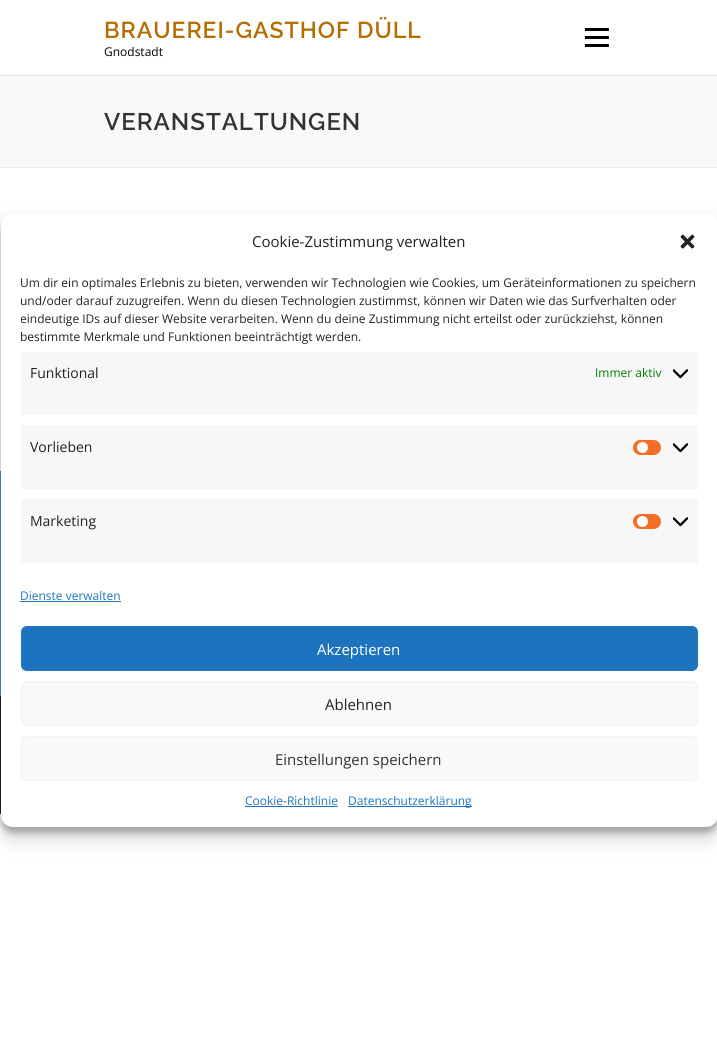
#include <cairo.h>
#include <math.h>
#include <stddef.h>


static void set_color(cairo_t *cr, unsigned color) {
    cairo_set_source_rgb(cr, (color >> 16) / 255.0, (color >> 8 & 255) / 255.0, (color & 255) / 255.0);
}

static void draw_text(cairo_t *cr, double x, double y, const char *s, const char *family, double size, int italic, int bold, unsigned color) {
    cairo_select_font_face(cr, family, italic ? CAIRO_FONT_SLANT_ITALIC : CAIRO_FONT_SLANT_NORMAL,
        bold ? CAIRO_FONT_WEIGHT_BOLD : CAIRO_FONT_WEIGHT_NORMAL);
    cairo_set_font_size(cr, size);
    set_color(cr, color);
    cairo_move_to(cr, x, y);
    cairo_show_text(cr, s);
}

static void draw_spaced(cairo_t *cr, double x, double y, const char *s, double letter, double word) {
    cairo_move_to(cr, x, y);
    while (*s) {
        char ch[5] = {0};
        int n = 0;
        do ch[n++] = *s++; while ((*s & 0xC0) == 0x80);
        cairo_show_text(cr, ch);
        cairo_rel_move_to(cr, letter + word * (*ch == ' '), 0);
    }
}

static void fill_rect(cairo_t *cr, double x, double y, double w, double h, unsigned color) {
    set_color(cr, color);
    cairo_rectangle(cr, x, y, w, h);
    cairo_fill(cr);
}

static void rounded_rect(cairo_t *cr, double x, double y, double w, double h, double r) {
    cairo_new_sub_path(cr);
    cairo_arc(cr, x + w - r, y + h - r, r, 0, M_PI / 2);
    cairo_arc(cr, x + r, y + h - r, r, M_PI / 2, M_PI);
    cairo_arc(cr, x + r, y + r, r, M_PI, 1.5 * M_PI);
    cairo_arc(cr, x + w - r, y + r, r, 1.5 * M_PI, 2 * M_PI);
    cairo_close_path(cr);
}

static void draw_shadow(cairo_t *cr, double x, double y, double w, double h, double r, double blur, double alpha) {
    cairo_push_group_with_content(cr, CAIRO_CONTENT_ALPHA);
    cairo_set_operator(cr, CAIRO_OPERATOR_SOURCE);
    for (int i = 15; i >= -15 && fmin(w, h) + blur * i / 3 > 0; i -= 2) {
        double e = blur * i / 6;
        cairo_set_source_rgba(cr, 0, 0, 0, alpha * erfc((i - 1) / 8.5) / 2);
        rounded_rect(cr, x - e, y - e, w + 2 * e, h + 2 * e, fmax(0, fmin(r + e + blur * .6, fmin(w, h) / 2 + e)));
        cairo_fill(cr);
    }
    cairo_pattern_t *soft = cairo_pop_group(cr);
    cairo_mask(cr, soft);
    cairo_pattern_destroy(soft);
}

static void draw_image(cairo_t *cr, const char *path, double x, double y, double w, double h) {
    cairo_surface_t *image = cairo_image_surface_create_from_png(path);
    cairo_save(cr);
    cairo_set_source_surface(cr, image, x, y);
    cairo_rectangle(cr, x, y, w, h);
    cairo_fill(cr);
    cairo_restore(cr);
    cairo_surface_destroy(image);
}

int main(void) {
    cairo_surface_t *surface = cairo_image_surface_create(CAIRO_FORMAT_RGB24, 717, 1040);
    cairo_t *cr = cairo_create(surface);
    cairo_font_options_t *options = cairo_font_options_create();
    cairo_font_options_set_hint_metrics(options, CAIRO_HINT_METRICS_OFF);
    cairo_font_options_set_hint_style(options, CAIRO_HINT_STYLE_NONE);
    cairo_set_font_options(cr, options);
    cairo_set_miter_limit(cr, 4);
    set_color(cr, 0xFFFFFF);
    cairo_paint(cr);
    cairo_select_font_face(cr, "Raleway SemiBold", CAIRO_FONT_SLANT_NORMAL, CAIRO_FONT_WEIGHT_NORMAL);
    cairo_set_font_size(cr, 23);
    set_color(cr, 0xB56C00);
    draw_spaced(cr, 104, 38, "BRAUEREI-GASTHOF DÜLL", 1, 0);
    draw_text(cr, 104, 56, "Gnodstadt", "Open Sans", 12, 0, 0, 0x000000);
    fill_rect(cr, 585, 36, 24, 3, 0x000000);
    fill_rect(cr, 585, 28, 24, 3, 0x000000);
    fill_rect(cr, 585, 44, 24, 3, 0x000000);
    fill_rect(cr, 0, 76, 717, 91, 0xF8F9F9);
    fill_rect(cr, 0, 75, 717, 1, 0xE9E9E9);
    fill_rect(cr, 0, 167, 717, 1, 0xE9E9E9);
    cairo_select_font_face(cr, "Raleway SemiBold", CAIRO_FONT_SLANT_NORMAL, CAIRO_FONT_WEIGHT_NORMAL);
    cairo_set_font_size(cr, 24);
    set_color(cr, 0x333333);
    draw_spaced(cr, 104, 130, "VERANSTALTUNGEN", 1, 0);
    fill_rect(cr, 0, 471, 1, 225, 0x528CBF);
    fill_rect(cr, 0, 696, 1, 118, 0x222222);
    set_color(cr, 0x000000);
    draw_shadow(cr, 1, 220, 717, 613, 12, 3, 0.23);
    draw_shadow(cr, 1, 224, 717, 613, 12, 10, 0.19);
    set_color(cr, 0xFFFFFF);
    rounded_rect(cr, 1, 214, 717, 613, 12);
    cairo_fill(cr);
    draw_text(cr, 252, 247, "Cookie-Zustimmung verwalten", "Open Sans", 15, 0, 0, 0x222222);
    draw_image(cr, "assets/img1.png", 680, 234, 15, 15);
    draw_text(cr, 20, 287, "Um dir ein optimales Erlebnis zu bieten, verwenden wir Technologien wie Cookies, um Geräteinformationen zu speichern", "Open Sans", 12, 0, 0, 0x222222);
    draw_text(cr, 20, 305, "und/oder darauf zuzugreifen. Wenn du diesen Technologien zustimmst, können wir Daten wie das Surfverhalten oder", "Open Sans", 12, 0, 0, 0x222222);
    cairo_save(cr);
    cairo_rectangle(cr, 21, 275, 677, 301);
    cairo_clip(cr);
    draw_text(cr, 20, 323, "eindeutige IDs auf dieser Website verarbeiten. Wenn du deine Zustimmung nicht erteilst oder zurückziehst, können", "Open Sans", 12, 0, 0, 0x222222);
    cairo_restore(cr);
    draw_text(cr, 20, 341, "bestimmte Merkmale und Funktionen beeinträchtigt werden.", "Open Sans", 12, 0, 0, 0x222222);
    fill_rect(cr, 21, 352, 677, 63, 0xF7F7F7);
    draw_text(cr, 30, 378, "Funktional", "Open Sans", 14, 0, 0, 0x222222);
    draw_text(cr, 595, 377, "Immer aktiv", "Open Sans", 12, 0, 0, 0x008000);
    draw_image(cr, "assets/img2.png", 673, 369, 15, 10);
    fill_rect(cr, 21, 425, 677, 64, 0xF7F7F7);
    draw_text(cr, 30, 452, "Vorlieben", "Open Sans", 14, 0, 0, 0x222222);
    set_color(cr, 0xF56E28);
    rounded_rect(cr, 633, 440, 28, 15, 7.5);
    cairo_fill(cr);
    set_color(cr, 0xFFFFFF);
    cairo_arc(cr, 642.5, 447.5, 5.5, 0, 2 * M_PI);
    cairo_fill(cr);
    draw_image(cr, "assets/img2.png", 673, 443, 15, 10);
    fill_rect(cr, 21, 499, 677, 64, 0xF7F7F7);
    draw_text(cr, 30, 526, "Marketing", "Open Sans", 14, 0, 0, 0x222222);
    set_color(cr, 0xF56E28);
    rounded_rect(cr, 633, 514, 28, 15, 7.5);
    cairo_fill(cr);
    set_color(cr, 0xFFFFFF);
    cairo_arc(cr, 642.5, 521.5, 5.5, 0, 2 * M_PI);
    cairo_fill(cr);
    draw_image(cr, "assets/img2.png", 673, 517, 15, 10);
    draw_text(cr, 20, 600, "Dienste verwalten", "Open Sans", 12, 0, 0, 0x1E73BE);
    fill_rect(cr, 20, 601, 101, 1, 0x1E73BE);
    rounded_rect(cr, 21.5, 626.5, 676, 44, 5.5);
    cairo_fill_preserve(cr);
    cairo_set_line_width(cr, 1);
    cairo_stroke(cr);
    draw_text(cr, 317, 655, "Akzeptieren", "Open Sans", 15, 0, 0, 0xFFFFFF);
    set_color(cr, 0xF9F9F9);
    rounded_rect(cr, 21.5, 681.5, 676, 44, 5.5);
    cairo_fill_preserve(cr);
    set_color(cr, 0xF2F2F2);
    cairo_stroke(cr);
    draw_text(cr, 325, 710, "Ablehnen", "Open Sans", 15, 0, 0, 0x222222);
    set_color(cr, 0xF9F9F9);
    rounded_rect(cr, 21.5, 736.5, 676, 44, 5.5);
    cairo_fill_preserve(cr);
    set_color(cr, 0xF2F2F2);
    cairo_stroke(cr);
    draw_text(cr, 275, 765, "Einstellungen speichern", "Open Sans", 15, 0, 0, 0x333333);
    draw_text(cr, 245, 805, "Cookie-Richtlinie", "Open Sans", 12, 0, 0, 0x1E73BE);
    fill_rect(cr, 245, 806, 93, 1, 0x1E73BE);
    fill_rect(cr, 348, 806, 124, 1, 0x1E73BE);
    draw_text(cr, 348, 805, "Datenschutzerklärung", "Open Sans", 12, 0, 0, 0x1E73BE);
    cairo_surface_write_to_png(surface, "output.png");
    cairo_font_options_destroy(options);
    cairo_destroy(cr);
    cairo_surface_destroy(surface);
    return 0;
}
